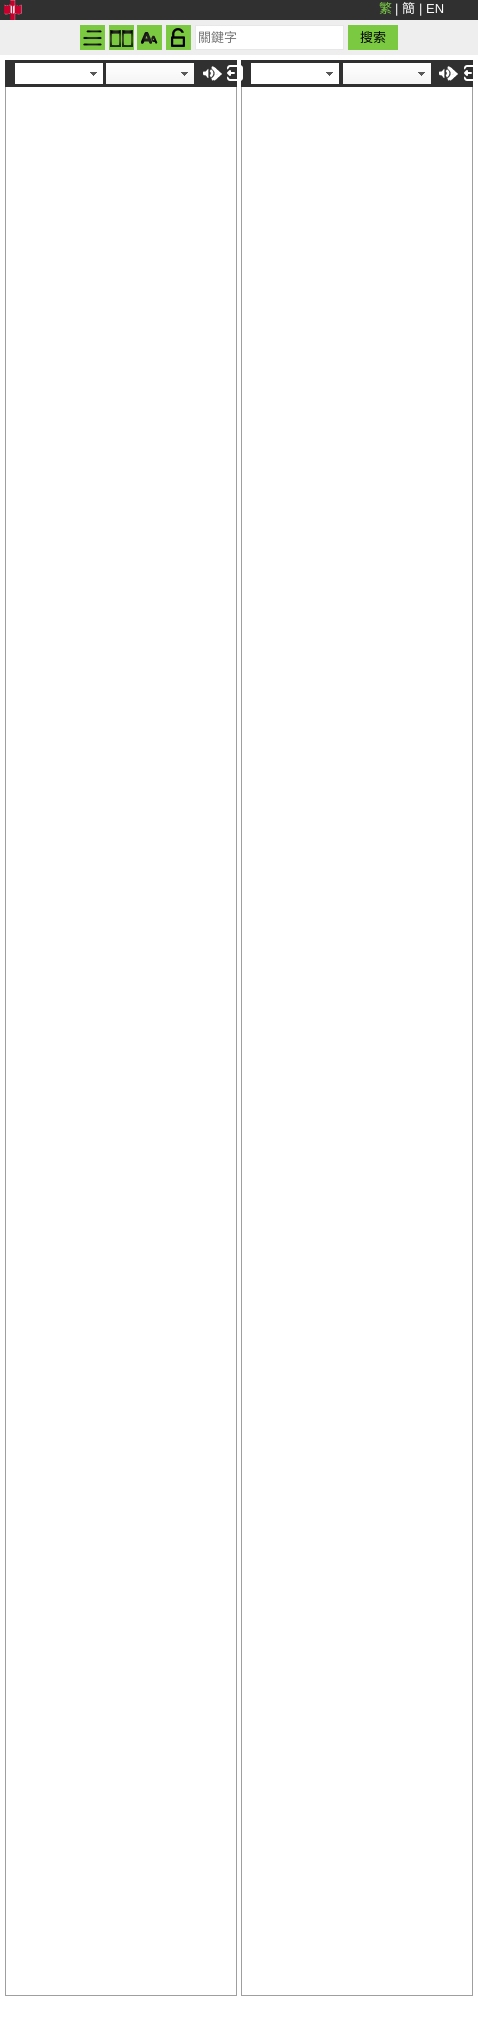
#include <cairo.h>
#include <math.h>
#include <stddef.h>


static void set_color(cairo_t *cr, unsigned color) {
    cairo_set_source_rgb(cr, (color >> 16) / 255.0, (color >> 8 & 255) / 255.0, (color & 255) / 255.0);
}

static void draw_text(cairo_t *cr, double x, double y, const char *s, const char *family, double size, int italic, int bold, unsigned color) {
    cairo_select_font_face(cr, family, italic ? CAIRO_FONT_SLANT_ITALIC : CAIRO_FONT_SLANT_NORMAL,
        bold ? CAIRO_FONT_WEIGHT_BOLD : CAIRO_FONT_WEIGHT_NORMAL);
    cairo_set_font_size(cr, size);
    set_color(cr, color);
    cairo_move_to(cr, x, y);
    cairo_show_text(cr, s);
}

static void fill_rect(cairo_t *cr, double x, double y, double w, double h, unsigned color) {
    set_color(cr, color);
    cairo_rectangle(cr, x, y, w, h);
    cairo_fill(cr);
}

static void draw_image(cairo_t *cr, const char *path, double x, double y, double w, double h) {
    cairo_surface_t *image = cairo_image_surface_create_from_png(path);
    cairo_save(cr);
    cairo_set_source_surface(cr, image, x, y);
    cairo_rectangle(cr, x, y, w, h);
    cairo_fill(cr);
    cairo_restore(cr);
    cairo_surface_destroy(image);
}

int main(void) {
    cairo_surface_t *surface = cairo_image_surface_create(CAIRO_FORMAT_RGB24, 478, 2035);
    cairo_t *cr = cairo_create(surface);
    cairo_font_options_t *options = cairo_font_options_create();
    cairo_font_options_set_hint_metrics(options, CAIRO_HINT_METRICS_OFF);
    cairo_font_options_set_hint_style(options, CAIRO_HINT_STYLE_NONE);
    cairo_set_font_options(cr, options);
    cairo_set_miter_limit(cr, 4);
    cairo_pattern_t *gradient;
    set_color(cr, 0xFFFFFF);
    cairo_paint(cr);
    fill_rect(cr, 0, 0, 478, 20, 0x303030);
    draw_text(cr, 379, 13, "繁", "Noto Sans CJK TC", 13, 0, 0, 0x79C944);
    draw_text(cr, 395, 13, "|", "Liberation Sans", 13, 0, 0, 0xFFFFFF);
    draw_text(cr, 402, 13, "簡", "Noto Sans CJK TC", 13, 0, 0, 0xFFFFFF);
    draw_text(cr, 419, 13, "| EN", "Liberation Sans", 13, 0, 0, 0xFFFFFF);
    fill_rect(cr, 0, 20, 478, 35, 0xEEEEEE);
    draw_image(cr, "assets/img1.png", 4, 0, 18, 20);
    fill_rect(cr, 80, 25, 25, 25, 0x7BC941);
    draw_image(cr, "assets/img2.png", 83, 30, 19, 16);
    fill_rect(cr, 109, 25, 25, 25, 0x7BC941);
    draw_image(cr, "assets/img3.png", 110, 30, 23, 17);
    fill_rect(cr, 137, 25, 25, 25, 0x7BC941);
    draw_image(cr, "assets/img4.png", 141, 32, 17, 12);
    fill_rect(cr, 166, 25, 25, 25, 0x7BC941);
    draw_image(cr, "assets/img5.png", 171, 28, 14, 19);
    set_color(cr, 0xFFFFFF);
    cairo_rectangle(cr, 195.5, 25.5, 148, 24);
    cairo_fill_preserve(cr);
    set_color(cr, 0xE7E7E7);
    cairo_set_line_width(cr, 1);
    cairo_stroke(cr);
    draw_text(cr, 198, 42, "關鍵字", "Noto Sans CJK TC", 13, 0, 0, 0x757575);
    fill_rect(cr, 348, 25, 50, 25, 0x7BC941);
    draw_text(cr, 360, 42, "搜索", "Noto Sans CJK TC", 13, 0, 0, 0x000000);
    fill_rect(cr, 5, 60, 232, 27, 0x303030);
    fill_rect(cr, 15, 63, 88, 21, 0xFFFFFF);
    draw_image(cr, "assets/img6.png", 90, 72, 7, 4);
    gradient = cairo_pattern_create_linear(150, 63, 150, 84);
    cairo_pattern_add_color_stop_rgba(gradient, 0, 1, 1, 1, 1);
    cairo_pattern_add_color_stop_rgba(gradient, 1, 0.961, 0.957, 0.957, 1);
    cairo_set_source(cr, gradient);
    cairo_pattern_destroy(gradient);
    cairo_rectangle(cr, 106, 63, 88, 21);
    cairo_fill(cr);
    draw_image(cr, "assets/img7.png", 181, 72, 7, 4);
    draw_image(cr, "assets/img10.png", 212, 67, 10, 14);
    draw_image(cr, "assets/img8.png", 203, 66, 14, 15);
    fill_rect(cr, 241, 60, 232, 27, 0x303030);
    draw_image(cr, "assets/img9.png", 227, 65, 16, 16);
    fill_rect(cr, 236, 87, 1, 1909, 0x9F9F9F);
    fill_rect(cr, 5, 1995, 232, 1, 0x9F9F9F);
    fill_rect(cr, 5, 87, 1, 1909, 0x9F9F9F);
    fill_rect(cr, 251, 63, 88, 21, 0xFFFFFF);
    draw_image(cr, "assets/img6.png", 326, 72, 7, 4);
    gradient = cairo_pattern_create_linear(387, 63, 387, 84);
    cairo_pattern_add_color_stop_rgba(gradient, 0, 1, 1, 1, 1);
    cairo_pattern_add_color_stop_rgba(gradient, 1, 0.961, 0.957, 0.957, 1);
    cairo_set_source(cr, gradient);
    cairo_pattern_destroy(gradient);
    cairo_rectangle(cr, 343, 63, 88, 21);
    cairo_fill(cr);
    draw_image(cr, "assets/img7.png", 418, 72, 7, 4);
    draw_image(cr, "assets/img10.png", 448, 67, 10, 14);
    draw_image(cr, "assets/img8.png", 439, 66, 14, 15);
    draw_image(cr, "assets/img11.png", 464, 65, 9, 16);
    fill_rect(cr, 472, 87, 1, 1909, 0x9F9F9F);
    fill_rect(cr, 241, 1995, 232, 1, 0x9F9F9F);
    fill_rect(cr, 241, 87, 1, 1909, 0x9F9F9F);
    cairo_surface_write_to_png(surface, "output.png");
    cairo_font_options_destroy(options);
    cairo_destroy(cr);
    cairo_surface_destroy(surface);
    return 0;
}
